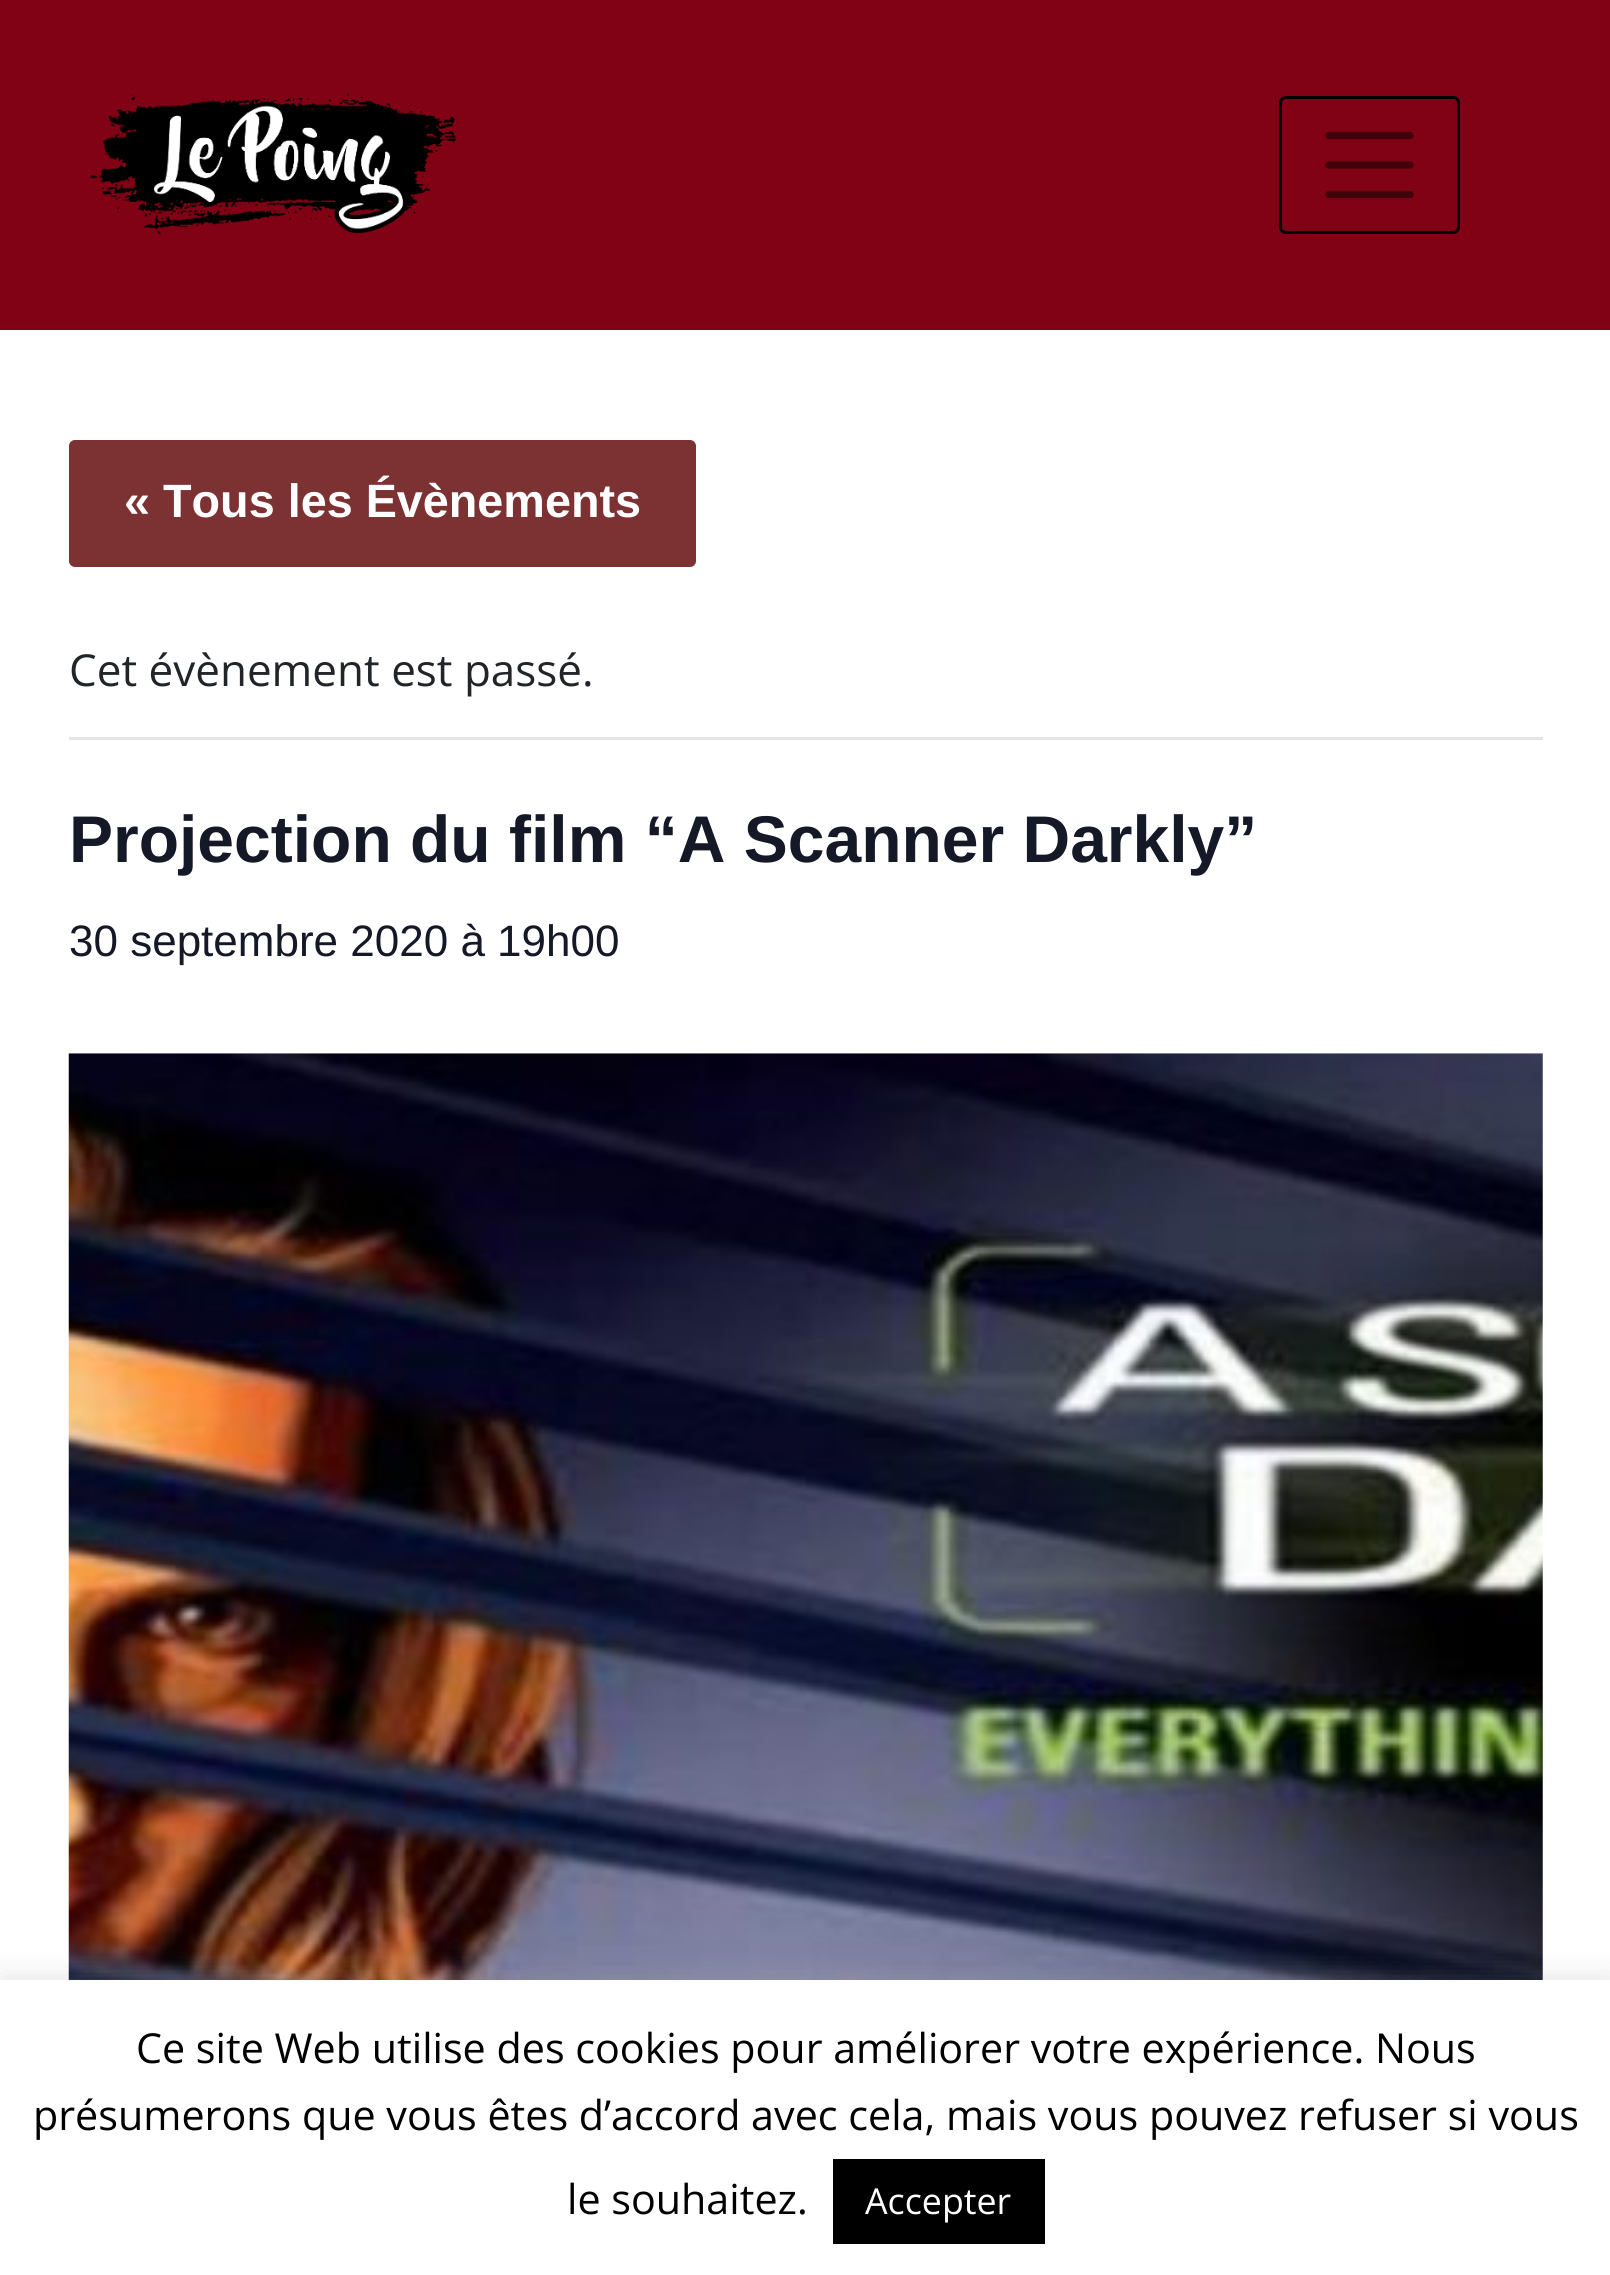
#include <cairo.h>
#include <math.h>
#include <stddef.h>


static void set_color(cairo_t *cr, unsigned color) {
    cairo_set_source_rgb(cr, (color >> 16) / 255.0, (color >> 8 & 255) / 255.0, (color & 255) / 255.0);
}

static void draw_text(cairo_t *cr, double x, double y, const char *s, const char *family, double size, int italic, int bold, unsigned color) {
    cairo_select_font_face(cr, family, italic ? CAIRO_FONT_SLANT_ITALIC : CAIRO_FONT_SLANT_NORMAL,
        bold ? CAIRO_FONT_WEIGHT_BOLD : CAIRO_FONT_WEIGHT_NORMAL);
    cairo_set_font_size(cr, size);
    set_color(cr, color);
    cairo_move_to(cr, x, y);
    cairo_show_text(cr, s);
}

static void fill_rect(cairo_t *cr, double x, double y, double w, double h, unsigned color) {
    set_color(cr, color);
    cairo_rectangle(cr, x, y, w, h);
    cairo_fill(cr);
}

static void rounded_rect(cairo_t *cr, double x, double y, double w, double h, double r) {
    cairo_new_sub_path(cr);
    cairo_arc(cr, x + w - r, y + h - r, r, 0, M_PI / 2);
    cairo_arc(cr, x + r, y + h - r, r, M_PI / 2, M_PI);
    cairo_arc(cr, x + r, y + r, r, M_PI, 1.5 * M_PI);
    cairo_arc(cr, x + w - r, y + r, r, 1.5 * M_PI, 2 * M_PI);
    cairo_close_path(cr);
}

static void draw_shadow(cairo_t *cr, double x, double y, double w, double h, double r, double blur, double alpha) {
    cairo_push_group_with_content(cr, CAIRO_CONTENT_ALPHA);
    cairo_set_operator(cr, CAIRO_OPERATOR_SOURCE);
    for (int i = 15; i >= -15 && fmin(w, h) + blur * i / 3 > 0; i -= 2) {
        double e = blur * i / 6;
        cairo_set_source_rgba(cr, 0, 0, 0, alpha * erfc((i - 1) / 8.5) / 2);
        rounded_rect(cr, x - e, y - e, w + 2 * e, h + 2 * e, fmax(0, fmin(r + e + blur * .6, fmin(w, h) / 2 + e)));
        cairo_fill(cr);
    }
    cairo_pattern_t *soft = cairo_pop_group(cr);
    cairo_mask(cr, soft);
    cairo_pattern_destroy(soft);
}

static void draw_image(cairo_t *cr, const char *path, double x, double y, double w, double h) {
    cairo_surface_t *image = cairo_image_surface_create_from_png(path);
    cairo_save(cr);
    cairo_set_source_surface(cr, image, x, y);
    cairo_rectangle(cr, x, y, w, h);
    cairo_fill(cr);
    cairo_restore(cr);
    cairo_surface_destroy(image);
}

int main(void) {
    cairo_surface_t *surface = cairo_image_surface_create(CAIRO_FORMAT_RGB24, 1610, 2275);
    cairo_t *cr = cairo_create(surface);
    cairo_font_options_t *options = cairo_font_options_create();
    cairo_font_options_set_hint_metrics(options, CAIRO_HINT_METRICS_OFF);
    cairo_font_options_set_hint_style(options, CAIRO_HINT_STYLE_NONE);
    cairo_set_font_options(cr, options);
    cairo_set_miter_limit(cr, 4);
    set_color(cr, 0xFFFFFF);
    cairo_paint(cr);
    fill_rect(cr, 0, 0, 1610, 330, 0x800214);
    draw_image(cr, "assets/img1.png", 90, 94, 367, 141);
    rounded_rect(cr, 1280.5, 97.5, 178, 135, 5.5);
    set_color(cr, 0x000000);
    cairo_set_line_width(cr, 3);
    cairo_stroke(cr);
    cairo_new_path(cr);
    cairo_move_to(cr, 1329, 135.5);
    cairo_line_to(cr, 1410, 135.5);
    cairo_move_to(cr, 1329, 165);
    cairo_line_to(cr, 1410, 165);
    cairo_move_to(cr, 1329, 194.5);
    cairo_line_to(cr, 1410, 194.5);
    set_color(cr, 0x40010A);
    cairo_set_line_width(cr, 7.3);
    cairo_set_line_cap(cr, CAIRO_LINE_CAP_ROUND);
    cairo_stroke(cr);
    set_color(cr, 0x7C3132);
    rounded_rect(cr, 69, 440, 627, 127, 6);
    cairo_fill(cr);
    draw_text(cr, 124, 517, "« Tous les Évènements", "Liberation Sans", 46.75, 0, 1, 0xFFFFFF);
    fill_rect(cr, 69, 737, 1474, 3, 0xE4E4E4);
    draw_text(cr, 69, 686, "Cet évènement est passé.", "Open Sans", 44, 0, 0, 0x212529);
    draw_text(cr, 69, 862, "Projection du film “A Scanner Darkly”", "Liberation Sans", 66, 0, 1, 0x141827);
    draw_text(cr, 69, 956, "30 septembre 2020 à 19h00", "Liberation Sans", 44, 0, 0, 0x141827);
    draw_image(cr, "assets/img2.png", 68, 1053, 1475, 927);
    set_color(cr, 0xACABAB);
    draw_shadow(cr, 0, 1977, 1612, 297, 0, 14, 0.3);
    fill_rect(cr, 0, 1980, 1610, 295, 0xFFFFFF);
    draw_text(cr, 136, 2063, "Ce site Web utilise des cookies pour améliorer votre expérience. Nous", "Open Sans", 41.25, 0, 0, 0x000000);
    draw_text(cr, 33, 2130, "présumerons que vous êtes d’accord avec cela, mais vous pouvez refuser si vous", "Open Sans", 41.25, 0, 0, 0x000000);
    draw_text(cr, 567, 2214, "le souhaitez.", "Open Sans", 41.25, 0, 0, 0x000000);
    fill_rect(cr, 833, 2159, 212, 85, 0x000000);
    draw_text(cr, 865, 2214, "Accepter", "Open Sans", 35.75, 0, 0, 0xFFFFFF);
    cairo_surface_write_to_png(surface, "output.png");
    cairo_font_options_destroy(options);
    cairo_destroy(cr);
    cairo_surface_destroy(surface);
    return 0;
}
